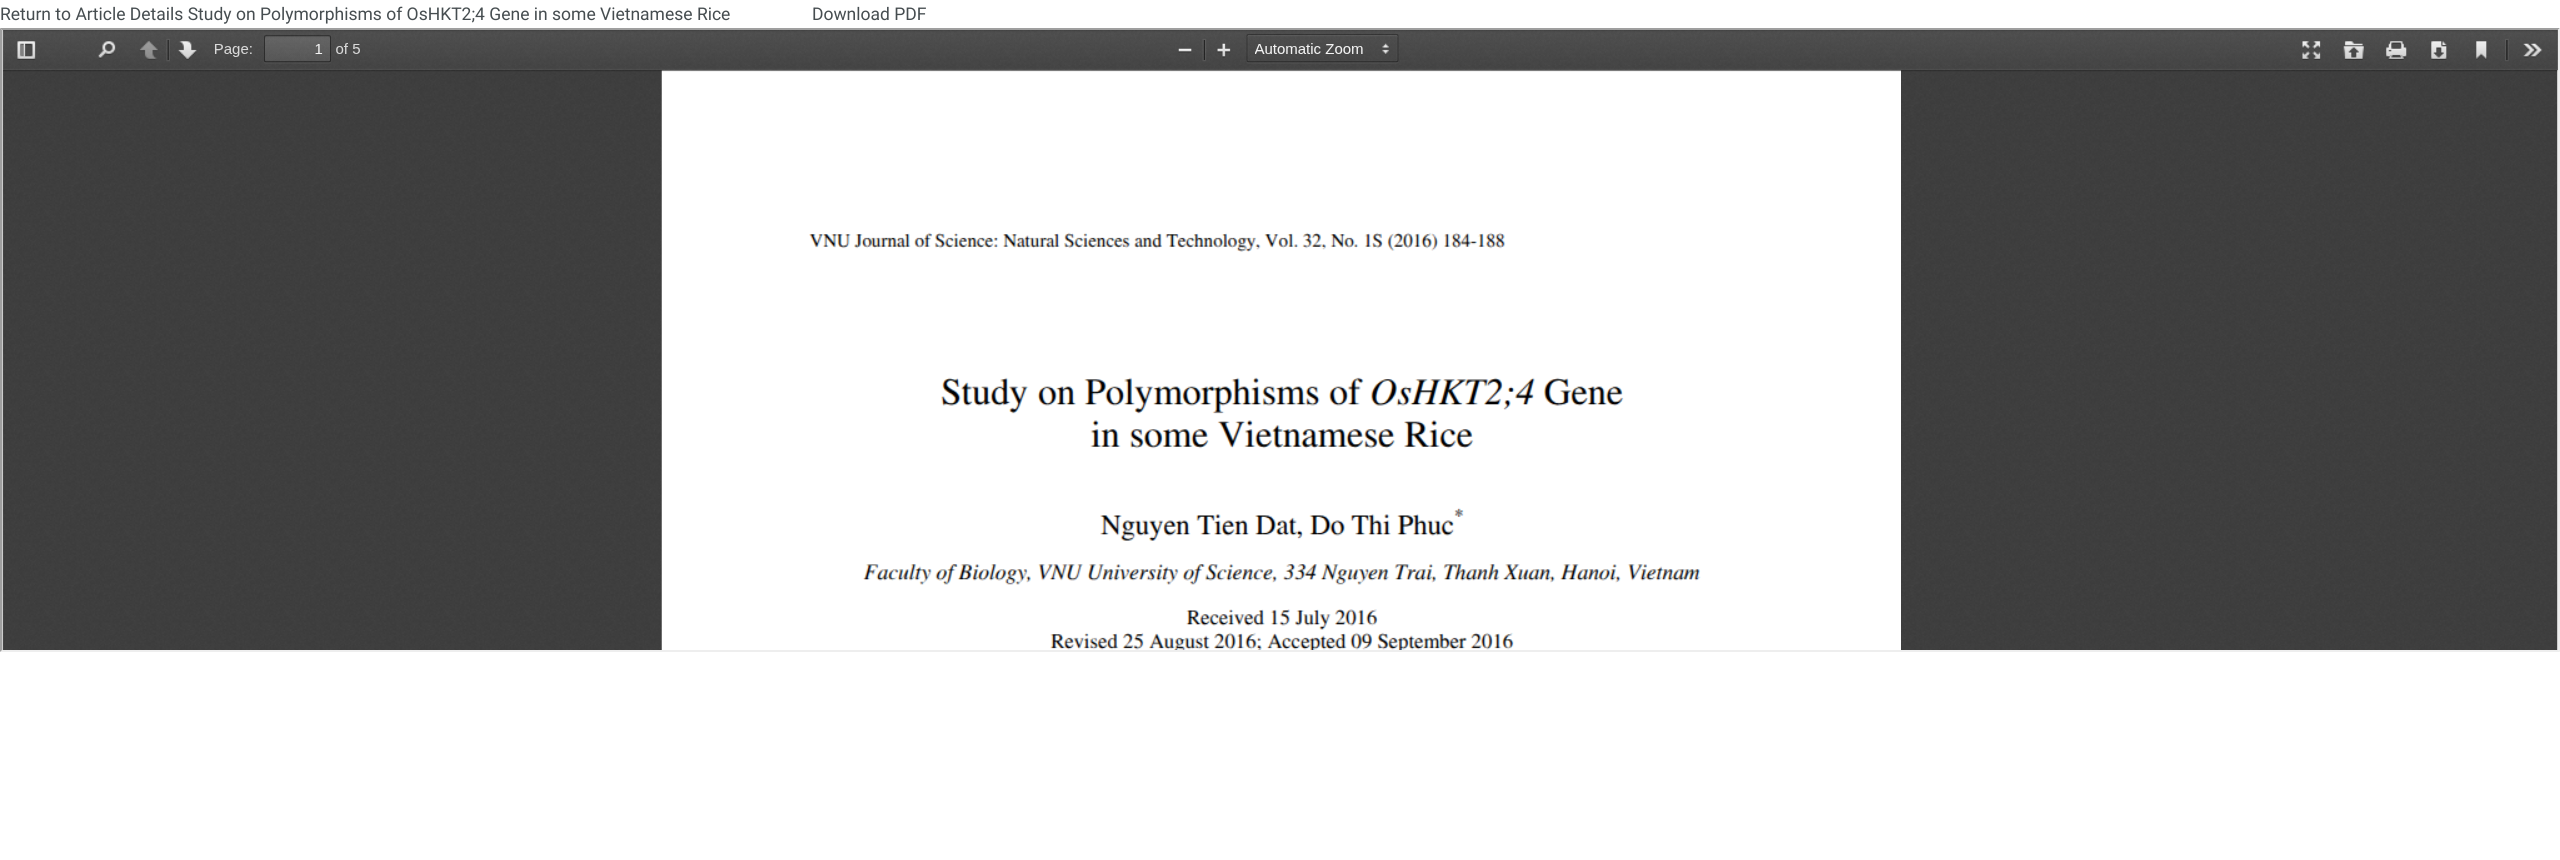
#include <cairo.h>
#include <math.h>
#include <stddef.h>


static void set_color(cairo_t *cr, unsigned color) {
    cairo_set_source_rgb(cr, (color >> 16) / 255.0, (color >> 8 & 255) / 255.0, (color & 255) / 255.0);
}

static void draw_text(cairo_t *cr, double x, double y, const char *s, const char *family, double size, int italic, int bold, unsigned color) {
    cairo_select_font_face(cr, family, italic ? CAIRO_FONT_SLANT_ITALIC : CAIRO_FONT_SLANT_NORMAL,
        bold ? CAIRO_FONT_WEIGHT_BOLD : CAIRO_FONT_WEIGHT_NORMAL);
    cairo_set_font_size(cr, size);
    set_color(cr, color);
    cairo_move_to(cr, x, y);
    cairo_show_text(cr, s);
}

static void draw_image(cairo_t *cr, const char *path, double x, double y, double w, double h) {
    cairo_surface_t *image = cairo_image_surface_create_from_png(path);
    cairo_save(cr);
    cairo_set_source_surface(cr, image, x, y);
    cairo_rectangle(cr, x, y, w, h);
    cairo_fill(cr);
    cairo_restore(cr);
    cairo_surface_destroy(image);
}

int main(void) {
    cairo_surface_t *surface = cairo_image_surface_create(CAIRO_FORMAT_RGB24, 2560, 860);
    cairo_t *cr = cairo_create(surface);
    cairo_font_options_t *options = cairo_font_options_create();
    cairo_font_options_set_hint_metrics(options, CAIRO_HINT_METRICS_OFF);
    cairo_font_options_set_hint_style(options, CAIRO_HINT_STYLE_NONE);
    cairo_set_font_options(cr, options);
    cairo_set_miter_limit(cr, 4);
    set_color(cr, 0xFFFFFF);
    cairo_paint(cr);
    draw_text(cr, 0, 20, "Return to Article Details Study on Polymorphisms of OsHKT2;4 Gene in some Vietnamese Rice", "Roboto", 17.5, 0, 0, 0x464D50);
    draw_text(cr, 812, 20, "Download PDF", "Roboto", 17.5, 0, 0, 0x464D50);
    set_color(cr, 0x9F9F9F);
    cairo_new_path(cr);
    cairo_move_to(cr, 0, 28);
    cairo_line_to(cr, 2560, 28);
    cairo_line_to(cr, 2558, 30);
    cairo_line_to(cr, 2, 30);
    cairo_close_path(cr);
    cairo_fill(cr);
    set_color(cr, 0xEEEEEE);
    cairo_new_path(cr);
    cairo_move_to(cr, 2560, 28);
    cairo_line_to(cr, 2560, 652);
    cairo_line_to(cr, 2558, 650);
    cairo_line_to(cr, 2558, 30);
    cairo_close_path(cr);
    cairo_fill(cr);
    cairo_new_path(cr);
    cairo_move_to(cr, 2560, 652);
    cairo_line_to(cr, 0, 652);
    cairo_line_to(cr, 2, 650);
    cairo_line_to(cr, 2558, 650);
    cairo_close_path(cr);
    cairo_fill(cr);
    set_color(cr, 0x9F9F9F);
    cairo_new_path(cr);
    cairo_move_to(cr, 0, 652);
    cairo_line_to(cr, 0, 28);
    cairo_line_to(cr, 2, 30);
    cairo_line_to(cr, 2, 650);
    cairo_close_path(cr);
    cairo_fill(cr);
    draw_image(cr, "assets/img1.png", 2, 30, 2556, 620);
    cairo_surface_write_to_png(surface, "output.png");
    cairo_font_options_destroy(options);
    cairo_destroy(cr);
    cairo_surface_destroy(surface);
    return 0;
}
